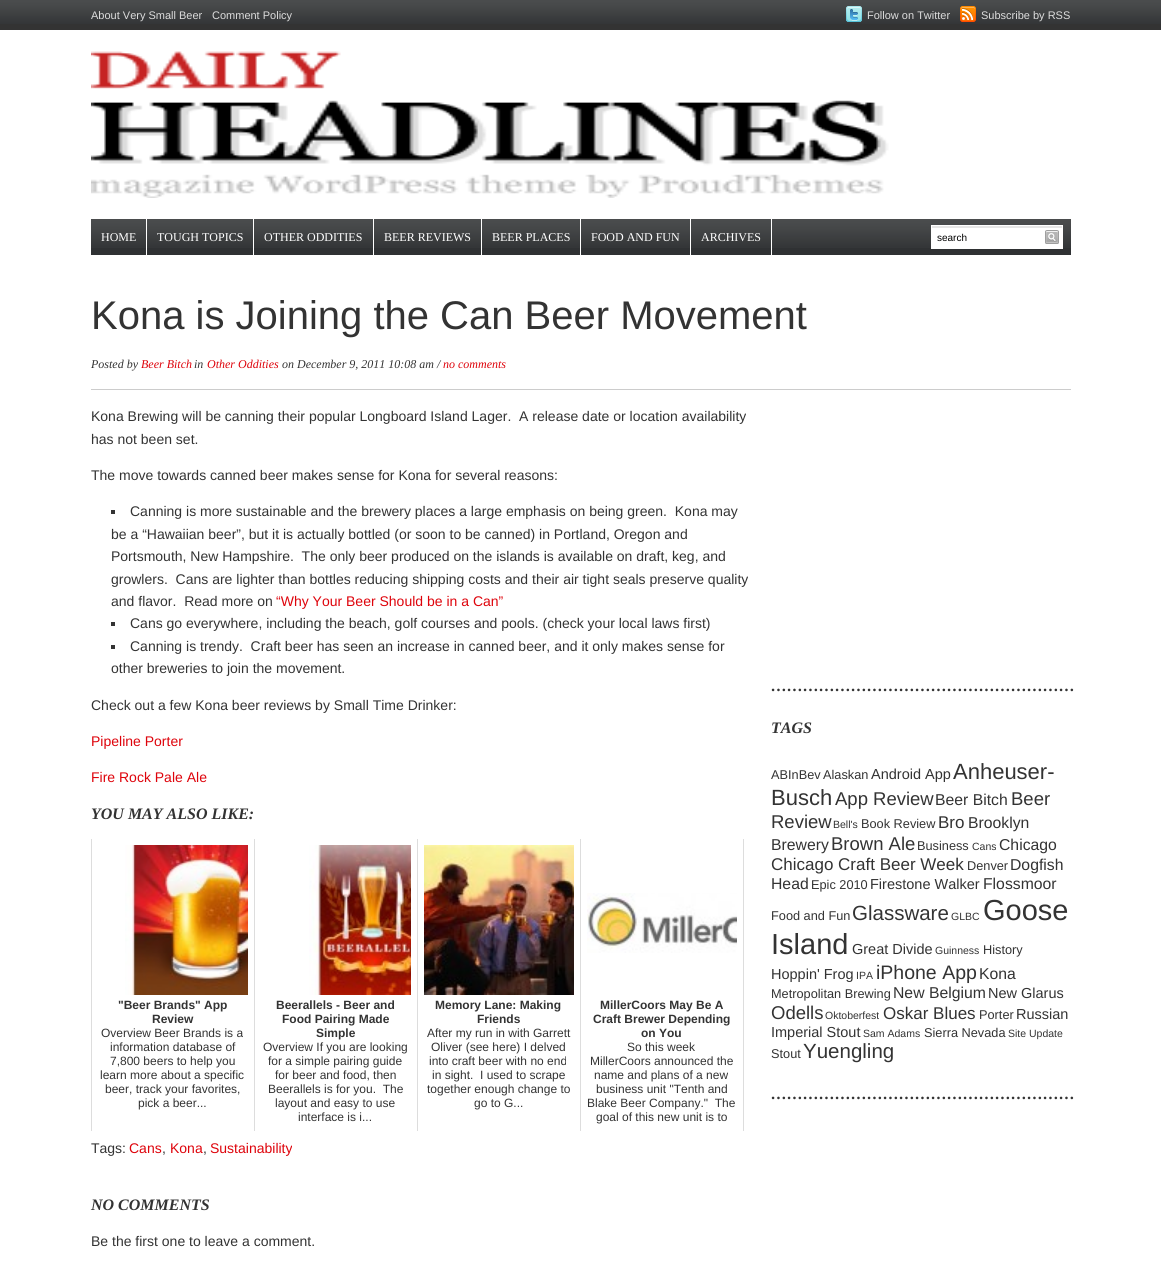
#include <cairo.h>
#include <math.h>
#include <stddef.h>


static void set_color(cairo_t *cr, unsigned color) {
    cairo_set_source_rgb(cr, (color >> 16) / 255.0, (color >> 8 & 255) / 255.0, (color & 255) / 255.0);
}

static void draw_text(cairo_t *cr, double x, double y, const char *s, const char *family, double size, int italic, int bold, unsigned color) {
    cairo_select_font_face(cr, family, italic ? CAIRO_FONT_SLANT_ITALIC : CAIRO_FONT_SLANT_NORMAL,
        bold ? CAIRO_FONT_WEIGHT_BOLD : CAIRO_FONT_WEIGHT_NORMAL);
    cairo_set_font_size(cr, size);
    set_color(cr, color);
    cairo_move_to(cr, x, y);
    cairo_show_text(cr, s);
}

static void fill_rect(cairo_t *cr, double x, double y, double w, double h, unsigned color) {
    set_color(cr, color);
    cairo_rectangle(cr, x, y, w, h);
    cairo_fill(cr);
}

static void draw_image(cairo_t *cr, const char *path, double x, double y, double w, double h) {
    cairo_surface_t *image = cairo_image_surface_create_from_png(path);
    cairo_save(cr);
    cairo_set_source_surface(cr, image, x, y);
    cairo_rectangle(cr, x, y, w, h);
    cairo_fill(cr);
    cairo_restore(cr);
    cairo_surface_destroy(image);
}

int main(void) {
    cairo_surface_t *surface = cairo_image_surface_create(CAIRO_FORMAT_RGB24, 1161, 1274);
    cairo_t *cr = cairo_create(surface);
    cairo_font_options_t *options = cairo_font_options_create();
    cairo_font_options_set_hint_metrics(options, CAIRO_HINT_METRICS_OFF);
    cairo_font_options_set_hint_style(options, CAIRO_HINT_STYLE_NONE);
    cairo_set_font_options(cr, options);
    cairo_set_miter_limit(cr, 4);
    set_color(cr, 0xFFFFFF);
    cairo_paint(cr);
    fill_rect(cr, 0, 24, 1161, 6, 0x333333);
    draw_image(cr, "assets/img1.png", 0, 0, 1161, 24);
    draw_text(cr, 91, 19, "About Very Small Beer", "Liberation Sans", 11, 0, 0, 0xDDDDDD);
    draw_text(cr, 212, 19, "Comment Policy", "Liberation Sans", 11, 0, 0, 0xDDDDDD);
    draw_image(cr, "assets/img2.png", 846, 6, 16, 16);
    draw_text(cr, 867, 19, "Follow on Twitter", "Liberation Sans", 11, 0, 0, 0xDDDDDD);
    draw_image(cr, "assets/img3.png", 960, 6, 16, 16);
    draw_text(cr, 981, 19, "Subscribe by RSS", "Liberation Sans", 11, 0, 0, 0xDDDDDD);
    draw_image(cr, "assets/img4.png", 91, 51, 798, 147);
    fill_rect(cr, 91, 248, 980, 7, 0x2F3133);
    draw_image(cr, "assets/img5.png", 91, 219, 980, 29);
    fill_rect(cr, 146, 219, 1, 36, 0xFFFFFF);
    draw_text(cr, 101, 241, "HOME", "Liberation Serif", 12, 0, 0, 0xFFFFFF);
    fill_rect(cr, 253, 219, 1, 36, 0xFFFFFF);
    draw_text(cr, 157, 241, "TOUGH TOPICS", "Liberation Serif", 12, 0, 0, 0xFFFFFF);
    fill_rect(cr, 373, 219, 1, 36, 0xFFFFFF);
    draw_text(cr, 264, 241, "OTHER ODDITIES", "Liberation Serif", 12, 0, 0, 0xFFFFFF);
    fill_rect(cr, 481, 219, 1, 36, 0xFFFFFF);
    draw_text(cr, 384, 241, "BEER REVIEWS", "Liberation Serif", 12, 0, 0, 0xFFFFFF);
    fill_rect(cr, 580, 219, 1, 36, 0xFFFFFF);
    draw_text(cr, 492, 241, "BEER PLACES", "Liberation Serif", 12, 0, 0, 0xFFFFFF);
    fill_rect(cr, 690, 219, 1, 36, 0xFFFFFF);
    draw_text(cr, 591, 241, "FOOD AND FUN", "Liberation Serif", 12, 0, 0, 0xFFFFFF);
    fill_rect(cr, 771, 219, 1, 36, 0xFFFFFF);
    draw_text(cr, 701, 241, "ARCHIVES", "Liberation Serif", 12, 0, 0, 0xFFFFFF);
    draw_image(cr, "assets/img6.png", 932, 226, 130, 22);
    cairo_rectangle(cr, 931.5, 225.5, 131, 23);
    cairo_set_line_width(cr, 1);
    cairo_stroke(cr);
    draw_text(cr, 937, 241, "search", "Liberation Sans", 10, 0, 0, 0x000000);
    draw_image(cr, "assets/img7.png", 1045, 230, 14, 14);
    fill_rect(cr, 91, 389, 980, 1, 0xCCCCCC);
    draw_text(cr, 91, 329, "Kona is Joining the Can Beer Movement", "Liberation Sans", 40, 0, 0, 0x333333);
    draw_text(cr, 91, 368, "Posted by", "Liberation Serif", 12, 1, 0, 0x333333);
    draw_text(cr, 141, 368, "Beer Bitch", "Liberation Serif", 12, 1, 0, 0xDE030B);
    draw_text(cr, 194, 368, "in", "Liberation Serif", 12, 1, 0, 0x333333);
    draw_text(cr, 207, 368, "Other Oddities", "Liberation Serif", 12, 1, 0, 0xDE030B);
    draw_text(cr, 282, 368, "on December 9, 2011 10:08 am /", "Liberation Serif", 12, 1, 0, 0x333333);
    draw_text(cr, 443, 368, "no comments", "Liberation Serif", 12, 1, 0, 0xDE030B);
    draw_text(cr, 91, 421, "Kona Brewing will be canning their popular Longboard Island Lager.  A release date or location availability", "Liberation Sans", 14, 0, 0, 0x333333);
    draw_text(cr, 91, 444, "has not been set.", "Liberation Sans", 14, 0, 0, 0x333333);
    draw_text(cr, 91, 480, "The move towards canned beer makes sense for Kona for several reasons:", "Liberation Sans", 14, 0, 0, 0x333333);
    fill_rect(cr, 111, 510, 4, 4, 0x333333);
    draw_text(cr, 130, 516, "Canning is more sustainable and the brewery places a large emphasis on being green.  Kona may", "Liberation Sans", 14, 0, 0, 0x333333);
    draw_text(cr, 111, 539, "be a “Hawaiian beer”, but it is actually bottled (or soon to be canned) in Portland, Oregon and", "Liberation Sans", 14, 0, 0, 0x333333);
    draw_text(cr, 111, 561, "Portsmouth, New Hampshire.  The only beer produced on the islands is available on draft, keg, and", "Liberation Sans", 14, 0, 0, 0x333333);
    draw_text(cr, 111, 584, "growlers.  Cans are lighter than bottles reducing shipping costs and their air tight seals preserve quality", "Liberation Sans", 14, 0, 0, 0x333333);
    draw_text(cr, 111, 606, "and flavor.  Read more on", "Liberation Sans", 14, 0, 0, 0x333333);
    draw_text(cr, 276, 606, "“Why Your Beer Should be in a Can”", "Liberation Sans", 14, 0, 0, 0xDE030B);
    fill_rect(cr, 111, 622, 4, 4, 0x333333);
    draw_text(cr, 130, 628, "Cans go everywhere, including the beach, golf courses and pools. (check your local laws first)", "Liberation Sans", 14, 0, 0, 0x333333);
    fill_rect(cr, 111, 645, 4, 4, 0x333333);
    draw_text(cr, 130, 651, "Canning is trendy.  Craft beer has seen an increase in canned beer, and it only makes sense for", "Liberation Sans", 14, 0, 0, 0x333333);
    draw_text(cr, 111, 673, "other breweries to join the movement.", "Liberation Sans", 14, 0, 0, 0x333333);
    draw_text(cr, 91, 710, "Check out a few Kona beer reviews by Small Time Drinker:", "Liberation Sans", 14, 0, 0, 0x333333);
    draw_text(cr, 91, 746, "Pipeline Porter", "Liberation Sans", 14, 0, 0, 0xDE030B);
    draw_text(cr, 91, 782, "Fire Rock Pale Ale", "Liberation Sans", 14, 0, 0, 0xDE030B);
    draw_text(cr, 91, 819, "YOU MAY ALSO LIKE:", "Liberation Serif", 16, 1, 1, 0x333333);
    fill_rect(cr, 91, 839, 1, 292, 0xDDDDDD);
    draw_image(cr, "assets/img8.png", 125, 845, 123, 150);
    draw_text(cr, 118, 1009, "\"Beer Brands\" App", "Liberation Sans", 12, 0, 1, 0x333333);
    draw_text(cr, 152, 1023, "Review", "Liberation Sans", 12, 0, 1, 0x333333);
    draw_text(cr, 101, 1037, "Overview Beer Brands is a", "Liberation Sans", 12, 0, 0, 0x333333);
    draw_text(cr, 110, 1051, "information database of", "Liberation Sans", 12, 0, 0, 0x333333);
    draw_text(cr, 110, 1065, "7,800 beers to help you", "Liberation Sans", 12, 0, 0, 0x333333);
    draw_text(cr, 100, 1079, "learn more about a specific", "Liberation Sans", 12, 0, 0, 0x333333);
    draw_text(cr, 105, 1093, "beer, track your favorites,", "Liberation Sans", 12, 0, 0, 0x333333);
    draw_text(cr, 138, 1107, "pick a beer...", "Liberation Sans", 12, 0, 0, 0x333333);
    fill_rect(cr, 254, 839, 1, 292, 0xDDDDDD);
    draw_image(cr, "assets/img9.png", 309, 845, 102, 150);
    draw_text(cr, 276, 1009, "Beerallels - Beer and", "Liberation Sans", 12, 0, 1, 0x333333);
    draw_text(cr, 282, 1023, "Food Pairing Made", "Liberation Sans", 12, 0, 1, 0x333333);
    draw_text(cr, 316, 1037, "Simple", "Liberation Sans", 12, 0, 1, 0x333333);
    draw_text(cr, 263, 1051, "Overview If you are looking", "Liberation Sans", 12, 0, 0, 0x333333);
    draw_text(cr, 268, 1065, "for a simple pairing guide", "Liberation Sans", 12, 0, 0, 0x333333);
    draw_text(cr, 275, 1079, "for beer and food, then", "Liberation Sans", 12, 0, 0, 0x333333);
    draw_text(cr, 268, 1093, "Beerallels is for you.  The", "Liberation Sans", 12, 0, 0, 0x333333);
    draw_text(cr, 275, 1107, "layout and easy to use", "Liberation Sans", 12, 0, 0, 0x333333);
    draw_text(cr, 298, 1121, "interface is i...", "Liberation Sans", 12, 0, 0, 0x333333);
    fill_rect(cr, 417, 839, 1, 292, 0xDDDDDD);
    draw_image(cr, "assets/img10.png", 424, 845, 150, 150);
    draw_text(cr, 435, 1009, "Memory Lane: Making", "Liberation Sans", 12, 0, 1, 0x333333);
    draw_text(cr, 477, 1023, "Friends", "Liberation Sans", 12, 0, 1, 0x333333);
    draw_text(cr, 427, 1037, "After my run in with Garrett", "Liberation Sans", 12, 0, 0, 0x333333);
    draw_text(cr, 431, 1051, "Oliver (see here) I delved", "Liberation Sans", 12, 0, 0, 0x333333);
    draw_text(cr, 429, 1065, "into craft beer with no end", "Liberation Sans", 12, 0, 0, 0x333333);
    draw_text(cr, 432, 1079, "in sight.  I used to scrape", "Liberation Sans", 12, 0, 0, 0x333333);
    draw_text(cr, 427, 1093, "together enough change to", "Liberation Sans", 12, 0, 0, 0x333333);
    draw_text(cr, 474, 1107, "go to G...", "Liberation Sans", 12, 0, 0, 0x333333);
    fill_rect(cr, 743, 839, 1, 292, 0xDDDDDD);
    fill_rect(cr, 580, 839, 1, 292, 0xDDDDDD);
    draw_image(cr, "assets/img11.png", 587, 893, 150, 60);
    draw_text(cr, 600, 1009, "MillerCoors May Be A", "Liberation Sans", 12, 0, 1, 0x333333);
    draw_text(cr, 593, 1023, "Craft Brewer Depending", "Liberation Sans", 12, 0, 1, 0x333333);
    draw_text(cr, 641, 1037, "on You", "Liberation Sans", 12, 0, 1, 0x333333);
    draw_text(cr, 627, 1051, "So this week", "Liberation Sans", 12, 0, 0, 0x333333);
    draw_text(cr, 590, 1065, "MillerCoors announced the", "Liberation Sans", 12, 0, 0, 0x333333);
    draw_text(cr, 594, 1079, "name and plans of a new", "Liberation Sans", 12, 0, 0, 0x333333);
    draw_text(cr, 596, 1093, "business unit \"Tenth and", "Liberation Sans", 12, 0, 0, 0x333333);
    draw_text(cr, 587, 1107, "Blake Beer Company.\"  The", "Liberation Sans", 12, 0, 0, 0x333333);
    draw_text(cr, 596, 1121, "goal of this new unit is to", "Liberation Sans", 12, 0, 0, 0x333333);
    draw_text(cr, 91, 1153, "Tags:", "Liberation Sans", 14, 0, 0, 0x333333);
    draw_text(cr, 129, 1153, "Cans", "Liberation Sans", 14, 0, 0, 0xDE030B);
    draw_text(cr, 162, 1153, ",", "Liberation Sans", 14, 0, 0, 0x333333);
    draw_text(cr, 170, 1153, "Kona", "Liberation Sans", 14, 0, 0, 0xDE030B);
    draw_text(cr, 203, 1153, ",", "Liberation Sans", 14, 0, 0, 0x333333);
    draw_text(cr, 210, 1153, "Sustainability", "Liberation Sans", 14, 0, 0, 0xDE030B);
    draw_text(cr, 91, 1210, "NO COMMENTS", "Liberation Serif", 16, 1, 1, 0x333333);
    draw_text(cr, 91, 1246, "Be the first one to leave a comment.", "Liberation Sans", 14, 0, 0, 0x333333);
    draw_text(cr, 771, 691, "…………………………………………………", "Liberation Serif", 16, 1, 1, 0x333333);
    draw_text(cr, 771, 733, "TAGS", "Liberation Serif", 16, 1, 1, 0x333333);
    draw_text(cr, 771, 779, "ABInBev", "Liberation Sans", 12.75, 0, 0, 0x333333);
    draw_text(cr, 823, 779, "Alaskan", "Liberation Sans", 12.75, 0, 0, 0x333333);
    draw_text(cr, 871, 779, "Android App", "Liberation Sans", 14.5, 0, 0, 0x333333);
    draw_text(cr, 953, 779, "Anheuser-", "Liberation Sans", 22, 0, 0, 0x333333);
    draw_text(cr, 771, 805, "Busch", "Liberation Sans", 22, 0, 0, 0x333333);
    draw_text(cr, 835, 805, "App Review", "Liberation Sans", 18.5, 0, 0, 0x333333);
    draw_text(cr, 935, 805, "Beer Bitch", "Liberation Sans", 15.75, 0, 0, 0x333333);
    draw_text(cr, 1011, 805, "Beer", "Liberation Sans", 18.5, 0, 0, 0x333333);
    draw_text(cr, 771, 828, "Review", "Liberation Sans", 18.5, 0, 0, 0x333333);
    draw_text(cr, 833, 828, "Bell's", "Liberation Sans", 10.5, 0, 0, 0x333333);
    draw_text(cr, 861, 828, "Book Review", "Liberation Sans", 12.75, 0, 0, 0x333333);
    draw_text(cr, 938, 828, "Bro", "Liberation Sans", 17, 0, 0, 0x333333);
    draw_text(cr, 968, 828, "Brooklyn", "Liberation Sans", 15.75, 0, 0, 0x333333);
    draw_text(cr, 771, 850, "Brewery", "Liberation Sans", 15.75, 0, 0, 0x333333);
    draw_text(cr, 831, 850, "Brown Ale", "Liberation Sans", 18.5, 0, 0, 0x333333);
    draw_text(cr, 917, 850, "Business", "Liberation Sans", 12.75, 0, 0, 0x333333);
    draw_text(cr, 972, 850, "Cans", "Liberation Sans", 10.5, 0, 0, 0x333333);
    draw_text(cr, 999, 850, "Chicago", "Liberation Sans", 15.75, 0, 0, 0x333333);
    draw_text(cr, 771, 870, "Chicago Craft Beer Week", "Liberation Sans", 17, 0, 0, 0x333333);
    draw_text(cr, 967, 870, "Denver", "Liberation Sans", 12.75, 0, 0, 0x333333);
    draw_text(cr, 1010, 870, "Dogfish", "Liberation Sans", 15.75, 0, 0, 0x333333);
    draw_text(cr, 771, 889, "Head", "Liberation Sans", 15.75, 0, 0, 0x333333);
    draw_text(cr, 811, 889, "Epic 2010", "Liberation Sans", 12.75, 0, 0, 0x333333);
    draw_text(cr, 870, 889, "Firestone Walker", "Liberation Sans", 14.5, 0, 0, 0x333333);
    draw_text(cr, 983, 889, "Flossmoor", "Liberation Sans", 15.75, 0, 0, 0x333333);
    draw_text(cr, 771, 920, "Food and Fun", "Liberation Sans", 12.75, 0, 0, 0x333333);
    draw_text(cr, 852, 920, "Glassware", "Liberation Sans", 20.5, 0, 0, 0x333333);
    draw_text(cr, 951, 920, "GLBC", "Liberation Sans", 10.5, 0, 0, 0x333333);
    draw_text(cr, 983, 920, "Goose", "Liberation Sans", 29, 0, 0, 0x333333);
    draw_text(cr, 771, 954, "Island", "Liberation Sans", 29, 0, 0, 0x333333);
    draw_text(cr, 852, 954, "Great Divide", "Liberation Sans", 14.5, 0, 0, 0x333333);
    draw_text(cr, 935, 954, "Guinness", "Liberation Sans", 10.5, 0, 0, 0x333333);
    draw_text(cr, 983, 954, "History", "Liberation Sans", 12.75, 0, 0, 0x333333);
    draw_text(cr, 771, 979, "Hoppin' Frog", "Liberation Sans", 14.5, 0, 0, 0x333333);
    draw_text(cr, 856, 979, "IPA", "Liberation Sans", 10.5, 0, 0, 0x333333);
    draw_text(cr, 876, 979, "iPhone App", "Liberation Sans", 19.5, 0, 0, 0x333333);
    draw_text(cr, 979, 979, "Kona", "Liberation Sans", 15.75, 0, 0, 0x333333);
    draw_text(cr, 771, 998, "Metropolitan Brewing", "Liberation Sans", 12.75, 0, 0, 0x333333);
    draw_text(cr, 893, 998, "New Belgium", "Liberation Sans", 15.75, 0, 0, 0x333333);
    draw_text(cr, 988, 998, "New Glarus", "Liberation Sans", 14.5, 0, 0, 0x333333);
    draw_text(cr, 771, 1019, "Odells", "Liberation Sans", 18.5, 0, 0, 0x333333);
    draw_text(cr, 825, 1019, "Oktoberfest", "Liberation Sans", 10.5, 0, 0, 0x333333);
    draw_text(cr, 883, 1019, "Oskar Blues", "Liberation Sans", 17, 0, 0, 0x333333);
    draw_text(cr, 979, 1019, "Porter", "Liberation Sans", 12.75, 0, 0, 0x333333);
    draw_text(cr, 1016, 1019, "Russian", "Liberation Sans", 14.5, 0, 0, 0x333333);
    draw_text(cr, 771, 1037, "Imperial Stout", "Liberation Sans", 14.5, 0, 0, 0x333333);
    draw_text(cr, 863, 1037, "Sam Adams", "Liberation Sans", 10.5, 0, 0, 0x333333);
    draw_text(cr, 924, 1037, "Sierra Nevada", "Liberation Sans", 12.75, 0, 0, 0x333333);
    draw_text(cr, 1008, 1037, "Site Update", "Liberation Sans", 10.5, 0, 0, 0x333333);
    draw_text(cr, 771, 1058, "Stout", "Liberation Sans", 12.75, 0, 0, 0x333333);
    draw_text(cr, 803, 1058, "Yuengling", "Liberation Sans", 20.5, 0, 0, 0x333333);
    draw_text(cr, 771, 1099, "…………………………………………………", "Liberation Serif", 16, 1, 1, 0x333333);
    cairo_surface_write_to_png(surface, "output.png");
    cairo_font_options_destroy(options);
    cairo_destroy(cr);
    cairo_surface_destroy(surface);
    return 0;
}
